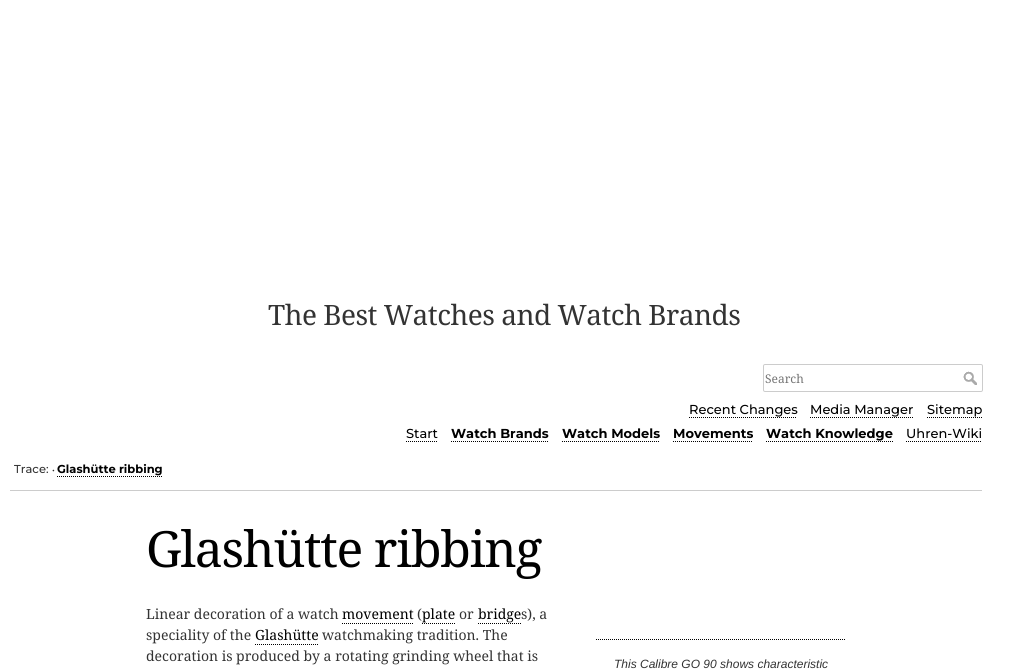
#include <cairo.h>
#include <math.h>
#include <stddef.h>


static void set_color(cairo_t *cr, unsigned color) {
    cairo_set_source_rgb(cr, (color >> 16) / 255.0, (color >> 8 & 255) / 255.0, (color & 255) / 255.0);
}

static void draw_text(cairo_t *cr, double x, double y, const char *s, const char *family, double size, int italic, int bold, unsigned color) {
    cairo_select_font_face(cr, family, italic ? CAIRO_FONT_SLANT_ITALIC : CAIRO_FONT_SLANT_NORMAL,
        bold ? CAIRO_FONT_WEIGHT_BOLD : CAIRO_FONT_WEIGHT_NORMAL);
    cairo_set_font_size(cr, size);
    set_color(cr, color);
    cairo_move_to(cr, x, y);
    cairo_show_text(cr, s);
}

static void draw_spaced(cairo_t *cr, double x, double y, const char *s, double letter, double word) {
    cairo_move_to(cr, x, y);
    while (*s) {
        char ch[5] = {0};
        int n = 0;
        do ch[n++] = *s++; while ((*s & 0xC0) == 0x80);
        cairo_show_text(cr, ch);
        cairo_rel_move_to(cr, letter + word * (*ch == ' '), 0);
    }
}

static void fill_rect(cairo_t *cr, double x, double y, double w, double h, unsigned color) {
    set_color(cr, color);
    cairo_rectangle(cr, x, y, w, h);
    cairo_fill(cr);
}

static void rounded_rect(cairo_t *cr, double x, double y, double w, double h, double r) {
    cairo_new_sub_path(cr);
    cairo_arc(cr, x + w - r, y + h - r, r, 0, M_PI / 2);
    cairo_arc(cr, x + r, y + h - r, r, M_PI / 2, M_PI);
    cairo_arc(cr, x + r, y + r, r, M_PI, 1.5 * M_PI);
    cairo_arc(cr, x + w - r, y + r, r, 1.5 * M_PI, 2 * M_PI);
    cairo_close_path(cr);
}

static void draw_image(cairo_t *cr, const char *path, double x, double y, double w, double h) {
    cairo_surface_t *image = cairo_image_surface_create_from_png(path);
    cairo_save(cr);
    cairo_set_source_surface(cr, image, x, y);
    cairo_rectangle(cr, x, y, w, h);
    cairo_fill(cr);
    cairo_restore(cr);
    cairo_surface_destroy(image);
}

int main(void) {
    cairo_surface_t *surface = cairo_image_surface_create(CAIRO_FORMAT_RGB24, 1022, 669);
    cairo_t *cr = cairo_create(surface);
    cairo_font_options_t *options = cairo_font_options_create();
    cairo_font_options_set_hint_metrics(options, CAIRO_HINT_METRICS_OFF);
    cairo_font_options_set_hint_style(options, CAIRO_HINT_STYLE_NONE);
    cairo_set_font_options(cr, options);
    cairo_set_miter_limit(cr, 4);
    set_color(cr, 0xFFFFFF);
    cairo_paint(cr);
    fill_rect(cr, 10, 490, 972, 1, 0xCCCCCC);
    cairo_select_font_face(cr, "Noto Serif", CAIRO_FONT_SLANT_NORMAL, CAIRO_FONT_WEIGHT_NORMAL);
    cairo_set_font_size(cr, 28);
    set_color(cr, 0x333333);
    draw_spaced(cr, 268, 325, "The Best Watches and Watch Brands", -0.5, 0);
    rounded_rect(cr, 763.5, 364.5, 219, 27, 1.5);
    set_color(cr, 0xCCCCCC);
    cairo_set_line_width(cr, 1);
    cairo_stroke(cr);
    draw_text(cr, 765, 383, "Search", "Noto Serif", 12, 0, 0, 0x757575);
    draw_image(cr, "assets/img1.png", 963, 371, 14, 14);
    draw_text(cr, 689, 414, "Recent Changes", "Montserrat Thin", 13, 0, 0, 0x000000);
    cairo_new_path(cr);
    cairo_move_to(cr, 689, 417.5);
    cairo_line_to(cr, 797, 417.5);
    cairo_set_dash(cr, (double[]){1, 1}, 2, 0);
    cairo_stroke(cr);
    draw_text(cr, 810, 414, "Media Manager", "Montserrat Thin", 13, 0, 0, 0x000000);
    cairo_new_path(cr);
    cairo_move_to(cr, 810, 417.5);
    cairo_line_to(cr, 914, 417.5);
    cairo_stroke(cr);
    draw_text(cr, 927, 414, "Sitemap", "Montserrat Thin", 13, 0, 0, 0x000000);
    cairo_new_path(cr);
    cairo_move_to(cr, 927, 417.5);
    cairo_line_to(cr, 982, 417.5);
    cairo_stroke(cr);
    draw_text(cr, 406, 438, "Start", "Montserrat Thin", 13, 0, 0, 0x000000);
    cairo_new_path(cr);
    cairo_move_to(cr, 406, 441.5);
    cairo_line_to(cr, 438, 441.5);
    cairo_stroke(cr);
    draw_text(cr, 451, 438, "Watch Brands", "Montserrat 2 Thin", 13, 0, 0, 0x000000);
    cairo_new_path(cr);
    cairo_move_to(cr, 451, 441.5);
    cairo_line_to(cr, 549, 441.5);
    cairo_stroke(cr);
    draw_text(cr, 562, 438, "Watch Models", "Montserrat 2 Thin", 13, 0, 0, 0x000000);
    cairo_new_path(cr);
    cairo_move_to(cr, 562, 441.5);
    cairo_line_to(cr, 660, 441.5);
    cairo_stroke(cr);
    draw_text(cr, 673, 438, "Movements", "Montserrat 2 Thin", 13, 0, 0, 0x000000);
    cairo_new_path(cr);
    cairo_move_to(cr, 673, 441.5);
    cairo_line_to(cr, 753, 441.5);
    cairo_stroke(cr);
    draw_text(cr, 766, 438, "Watch Knowledge", "Montserrat 2 Thin", 13, 0, 0, 0x000000);
    cairo_new_path(cr);
    cairo_move_to(cr, 766, 441.5);
    cairo_line_to(cr, 893, 441.5);
    cairo_stroke(cr);
    draw_text(cr, 906, 438, "Uhren-Wiki", "Montserrat Thin", 13, 0, 0, 0x000000);
    cairo_new_path(cr);
    cairo_move_to(cr, 906, 441.5);
    cairo_line_to(cr, 982, 441.5);
    cairo_stroke(cr);
    draw_text(cr, 14, 473, "Trace:", "Montserrat Thin", 11.5, 0, 0, 0x333333);
    draw_text(cr, 52, 473, "•", "Montserrat Thin", 9, 0, 0, 0x333333);
    draw_text(cr, 57, 473, "Glashütte ribbing", "Montserrat 2 Thin", 11.5, 0, 0, 0x000000);
    cairo_new_path(cr);
    cairo_move_to(cr, 57, 476.5);
    cairo_line_to(cr, 163, 476.5);
    cairo_stroke(cr);
    cairo_select_font_face(cr, "Noto Serif", CAIRO_FONT_SLANT_NORMAL, CAIRO_FONT_WEIGHT_NORMAL);
    cairo_set_font_size(cr, 50);
    draw_spaced(cr, 146, 567, "Glashütte ribbing", -1.25, 0);
    draw_text(cr, 146, 619, "Linear decoration of a watch", "Noto Serif", 14, 0, 0, 0x333333);
    draw_text(cr, 342, 619, "movement", "Noto Serif", 14, 0, 0, 0x000000);
    cairo_new_path(cr);
    cairo_move_to(cr, 342, 623.5);
    cairo_line_to(cr, 414, 623.5);
    cairo_stroke(cr);
    draw_text(cr, 417, 619, "(", "Noto Serif", 14, 0, 0, 0x333333);
    draw_text(cr, 422, 619, "plate", "Noto Serif", 14, 0, 0, 0x000000);
    cairo_new_path(cr);
    cairo_move_to(cr, 422, 623.5);
    cairo_line_to(cr, 456, 623.5);
    cairo_stroke(cr);
    draw_text(cr, 459, 619, "or", "Noto Serif", 14, 0, 0, 0x333333);
    draw_text(cr, 478, 619, "bridge", "Noto Serif", 14, 0, 0, 0x000000);
    cairo_new_path(cr);
    cairo_move_to(cr, 478, 623.5);
    cairo_line_to(cr, 521, 623.5);
    cairo_stroke(cr);
    draw_text(cr, 521, 619, "s), a", "Noto Serif", 14, 0, 0, 0x333333);
    draw_text(cr, 146, 640, "speciality of the", "Noto Serif", 14, 0, 0, 0x333333);
    draw_text(cr, 255, 640, "Glashütte", "Noto Serif", 14, 0, 0, 0x000000);
    cairo_new_path(cr);
    cairo_move_to(cr, 255, 644.5);
    cairo_line_to(cr, 318, 644.5);
    cairo_stroke(cr);
    draw_text(cr, 322, 640, "watchmaking tradition. The", "Noto Serif", 14, 0, 0, 0x333333);
    draw_text(cr, 146, 661, "decoration is produced by a rotating grinding wheel that is", "Noto Serif", 14, 0, 0, 0x333333);
    cairo_new_path(cr);
    cairo_move_to(cr, 596, 639.5);
    cairo_line_to(cr, 846, 639.5);
    set_color(cr, 0x000000);
    cairo_stroke(cr);
    draw_text(cr, 614, 668, "This Calibre GO 90 shows characteristic", "Liberation Sans", 12, 1, 0, 0x333333);
    cairo_surface_write_to_png(surface, "output.png");
    cairo_font_options_destroy(options);
    cairo_destroy(cr);
    cairo_surface_destroy(surface);
    return 0;
}
